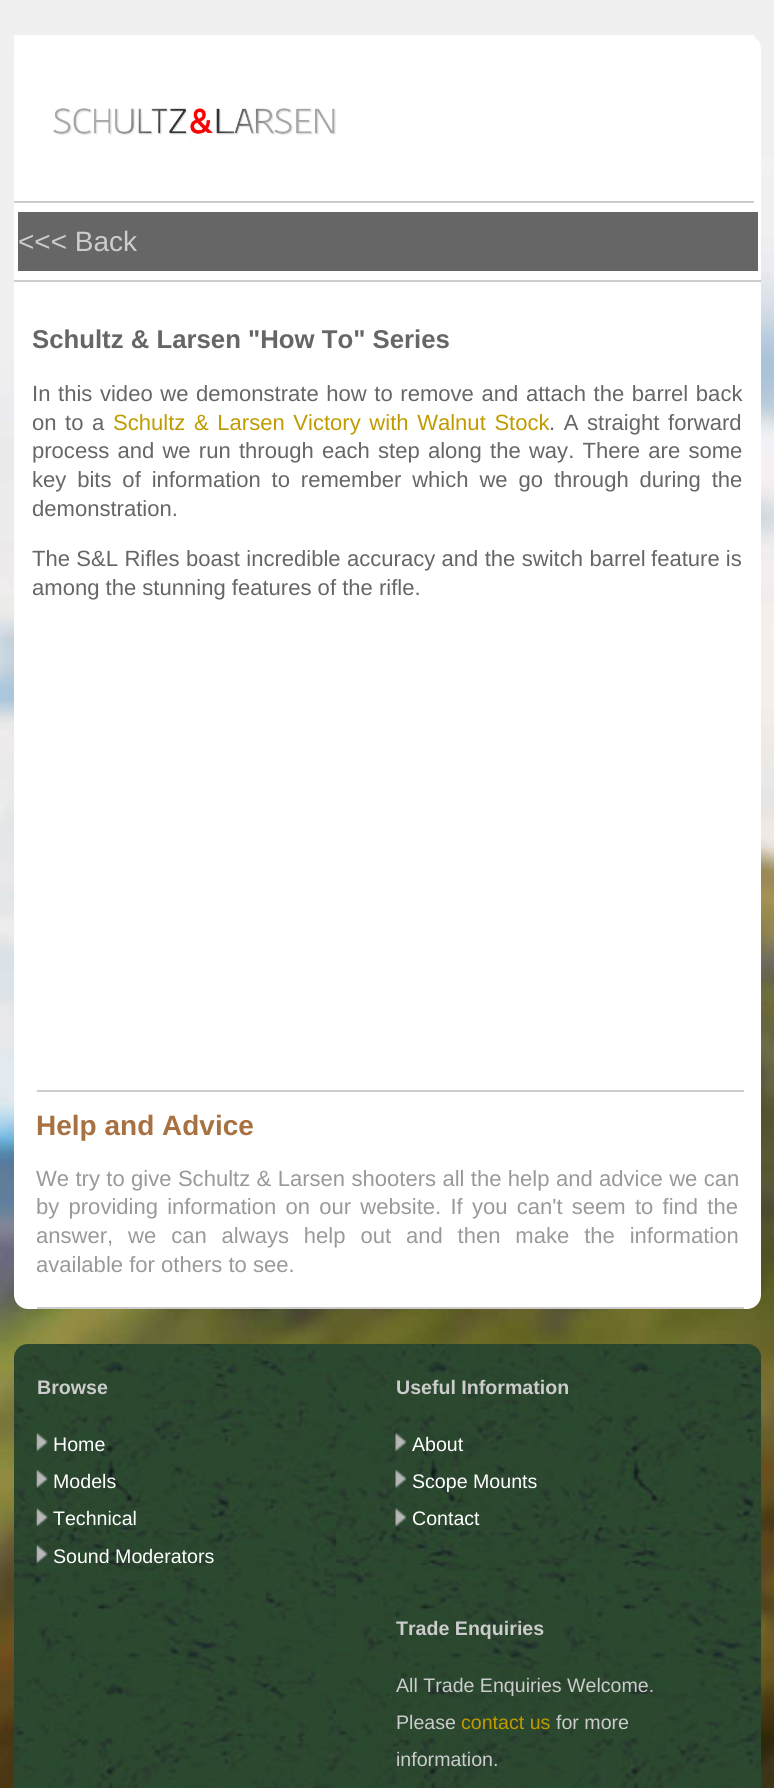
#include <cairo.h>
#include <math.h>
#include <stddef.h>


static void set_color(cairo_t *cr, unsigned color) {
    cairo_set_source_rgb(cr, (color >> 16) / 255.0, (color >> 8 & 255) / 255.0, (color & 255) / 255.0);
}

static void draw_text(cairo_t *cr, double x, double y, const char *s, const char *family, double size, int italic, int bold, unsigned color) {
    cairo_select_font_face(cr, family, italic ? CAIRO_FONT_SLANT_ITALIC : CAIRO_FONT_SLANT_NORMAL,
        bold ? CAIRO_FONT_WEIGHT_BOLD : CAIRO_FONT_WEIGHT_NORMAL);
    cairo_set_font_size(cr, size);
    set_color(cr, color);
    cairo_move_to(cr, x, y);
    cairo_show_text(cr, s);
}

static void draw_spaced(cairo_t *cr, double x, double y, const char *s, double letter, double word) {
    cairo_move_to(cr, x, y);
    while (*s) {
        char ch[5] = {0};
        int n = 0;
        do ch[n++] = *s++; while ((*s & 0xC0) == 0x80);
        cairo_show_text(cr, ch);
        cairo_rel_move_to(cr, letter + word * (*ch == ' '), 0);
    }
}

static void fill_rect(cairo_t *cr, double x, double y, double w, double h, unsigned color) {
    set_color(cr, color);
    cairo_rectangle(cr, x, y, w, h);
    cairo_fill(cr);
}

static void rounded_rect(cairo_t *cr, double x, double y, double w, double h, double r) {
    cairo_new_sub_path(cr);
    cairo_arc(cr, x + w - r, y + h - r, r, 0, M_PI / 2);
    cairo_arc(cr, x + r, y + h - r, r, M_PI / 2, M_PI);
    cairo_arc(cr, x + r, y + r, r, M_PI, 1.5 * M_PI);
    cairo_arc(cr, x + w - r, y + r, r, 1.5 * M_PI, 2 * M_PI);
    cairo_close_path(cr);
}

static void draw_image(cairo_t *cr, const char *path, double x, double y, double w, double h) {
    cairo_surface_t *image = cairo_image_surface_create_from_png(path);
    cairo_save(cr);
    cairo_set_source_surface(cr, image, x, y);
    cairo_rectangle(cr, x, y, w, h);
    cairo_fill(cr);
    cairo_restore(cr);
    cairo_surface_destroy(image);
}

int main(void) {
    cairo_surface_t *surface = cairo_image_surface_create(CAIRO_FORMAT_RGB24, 774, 1788);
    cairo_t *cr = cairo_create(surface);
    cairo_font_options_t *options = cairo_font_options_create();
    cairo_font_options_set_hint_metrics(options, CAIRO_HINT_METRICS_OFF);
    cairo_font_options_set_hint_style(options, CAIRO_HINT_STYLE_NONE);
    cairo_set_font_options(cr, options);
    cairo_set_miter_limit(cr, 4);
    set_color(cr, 0xFFFFFF);
    cairo_paint(cr);
    draw_image(cr, "assets/img1.png", 0, 0, 774, 1788);
    set_color(cr, 0xFFFFFF);
    rounded_rect(cr, 14, 35, 747, 1274, 14);
    cairo_fill(cr);
    fill_rect(cr, 14, 35, 740, 12, 0xFFFFFF);
    draw_image(cr, "assets/img2.png", 53, 103, 283, 37);
    fill_rect(cr, 14, 201, 740, 2, 0xCCCCCC);
    fill_rect(cr, 18, 212, 740, 59, 0x666666);
    draw_text(cr, 18, 251, "<<< Back", "Liberation Sans", 28, 0, 0, 0xCCCCCC);
    fill_rect(cr, 14, 280, 747, 2, 0xCCCCCC);
    draw_text(cr, 32, 348, "Schultz & Larsen \"How To\" Series", "Liberation Sans", 25.75, 0, 1, 0x666666);
    cairo_select_font_face(cr, "Liberation Sans", CAIRO_FONT_SLANT_NORMAL, CAIRO_FONT_WEIGHT_NORMAL);
    cairo_set_font_size(cr, 22.05);
    draw_spaced(cr, 32, 401, "In this video we demonstrate how to remove and attach the barrel back", 0, 1.5);
    draw_text(cr, 32, 430, "on", "Liberation Sans", 22.05, 0, 0, 0x666666);
    draw_spaced(cr, 65, 430, "to a", 0, 2.5);
    set_color(cr, 0xC09B00);
    draw_spaced(cr, 113, 430, "Schultz & Larsen Victory with Walnut Stock", 0, 2.5);
    set_color(cr, 0x666666);
    draw_spaced(cr, 549, 430, ". A straight forward", 0, 2.5);
    draw_spaced(cr, 32, 458, "process and we run through each step along the way. There are some", 0, 2.1);
    draw_spaced(cr, 32, 487, "key bits of information to remember which we go through during the", 0, 4.75);
    draw_text(cr, 32, 516, "demonstration.", "Liberation Sans", 22.05, 0, 0, 0x666666);
    draw_spaced(cr, 32, 566, "The S&L Rifles boast incredible accuracy and the switch barrel", 0, 0.25);
    draw_text(cr, 651, 566, "feature is", "Liberation Sans", 22.05, 0, 0, 0x666666);
    draw_text(cr, 32, 595, "among the stunning features of the rifle.", "Liberation Sans", 22.05, 0, 0, 0x666666);
    fill_rect(cr, 37, 1090, 707, 2, 0xCCCCCC);
    fill_rect(cr, 37, 1307, 707, 2, 0xCCCCCC);
    draw_text(cr, 36, 1135, "Help and Advice", "Liberation Sans", 28, 0, 1, 0xA87141);
    cairo_select_font_face(cr, "Liberation Sans", CAIRO_FONT_SLANT_NORMAL, CAIRO_FONT_WEIGHT_NORMAL);
    cairo_set_font_size(cr, 22.05);
    set_color(cr, 0x999999);
    draw_spaced(cr, 36, 1186, "We try to give Schultz & Larsen shooters all the help and advice we can", 0, 0.25);
    draw_spaced(cr, 36, 1214, "by providing information on our website. If you can't seem to find the", 0, 3.1);
    draw_spaced(cr, 36, 1243, "answer, we can always help out and then make the information", 0, 8.75);
    draw_text(cr, 36, 1272, "available for others to see.", "Liberation Sans", 22.05, 0, 0, 0x999999);
    draw_image(cr, "assets/img3.png", 14, 1344, 748, 444);
    draw_text(cr, 37, 1394, "Browse", "Liberation Sans", 19.6, 0, 1, 0xCCCCCC);
    draw_image(cr, "assets/img4.png", 36, 1433, 12, 18);
    draw_text(cr, 53, 1451, "Home", "Liberation Sans", 19.6, 0, 0, 0xFFFFFF);
    draw_image(cr, "assets/img5.png", 36, 1470, 12, 18);
    draw_text(cr, 53, 1488, "Models", "Liberation Sans", 19.6, 0, 0, 0xFFFFFF);
    draw_image(cr, "assets/img6.png", 36, 1508, 12, 18);
    draw_text(cr, 53, 1525, "Technical", "Liberation Sans", 19.6, 0, 0, 0xFFFFFF);
    draw_image(cr, "assets/img7.png", 36, 1545, 12, 18);
    draw_text(cr, 53, 1563, "Sound Moderators", "Liberation Sans", 19.6, 0, 0, 0xFFFFFF);
    draw_text(cr, 396, 1394, "Useful Information", "Liberation Sans", 19.6, 0, 1, 0xCCCCCC);
    draw_image(cr, "assets/img8.png", 395, 1433, 11, 18);
    draw_text(cr, 412, 1451, "About", "Liberation Sans", 19.6, 0, 0, 0xFFFFFF);
    draw_image(cr, "assets/img9.png", 395, 1470, 11, 18);
    draw_text(cr, 412, 1488, "Scope Mounts", "Liberation Sans", 19.6, 0, 0, 0xFFFFFF);
    draw_image(cr, "assets/img10.png", 395, 1508, 11, 18);
    draw_text(cr, 412, 1525, "Contact", "Liberation Sans", 19.6, 0, 0, 0xFFFFFF);
    draw_text(cr, 396, 1635, "Trade Enquiries", "Liberation Sans", 19.6, 0, 1, 0xCCCCCC);
    draw_text(cr, 396, 1692, "All Trade Enquiries Welcome.", "Liberation Sans", 19.6, 0, 0, 0xCCCCCC);
    draw_text(cr, 396, 1729, "Please", "Liberation Sans", 19.6, 0, 0, 0xCCCCCC);
    draw_text(cr, 461, 1729, "contact us", "Liberation Sans", 19.6, 0, 0, 0xC09B00);
    draw_text(cr, 556, 1729, "for more", "Liberation Sans", 19.6, 0, 0, 0xCCCCCC);
    draw_text(cr, 396, 1766, "information.", "Liberation Sans", 19.6, 0, 0, 0xCCCCCC);
    cairo_surface_write_to_png(surface, "output.png");
    cairo_font_options_destroy(options);
    cairo_destroy(cr);
    cairo_surface_destroy(surface);
    return 0;
}
